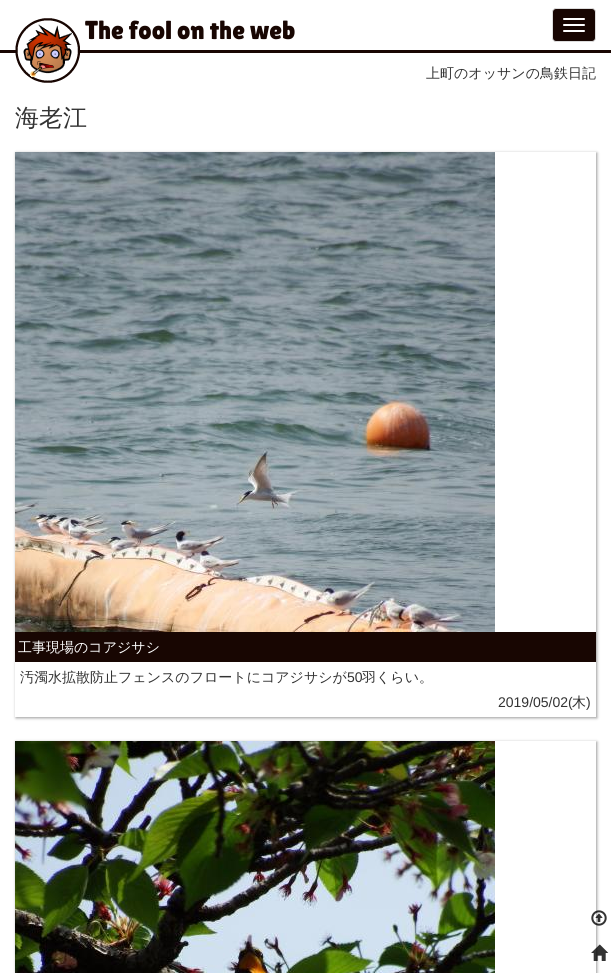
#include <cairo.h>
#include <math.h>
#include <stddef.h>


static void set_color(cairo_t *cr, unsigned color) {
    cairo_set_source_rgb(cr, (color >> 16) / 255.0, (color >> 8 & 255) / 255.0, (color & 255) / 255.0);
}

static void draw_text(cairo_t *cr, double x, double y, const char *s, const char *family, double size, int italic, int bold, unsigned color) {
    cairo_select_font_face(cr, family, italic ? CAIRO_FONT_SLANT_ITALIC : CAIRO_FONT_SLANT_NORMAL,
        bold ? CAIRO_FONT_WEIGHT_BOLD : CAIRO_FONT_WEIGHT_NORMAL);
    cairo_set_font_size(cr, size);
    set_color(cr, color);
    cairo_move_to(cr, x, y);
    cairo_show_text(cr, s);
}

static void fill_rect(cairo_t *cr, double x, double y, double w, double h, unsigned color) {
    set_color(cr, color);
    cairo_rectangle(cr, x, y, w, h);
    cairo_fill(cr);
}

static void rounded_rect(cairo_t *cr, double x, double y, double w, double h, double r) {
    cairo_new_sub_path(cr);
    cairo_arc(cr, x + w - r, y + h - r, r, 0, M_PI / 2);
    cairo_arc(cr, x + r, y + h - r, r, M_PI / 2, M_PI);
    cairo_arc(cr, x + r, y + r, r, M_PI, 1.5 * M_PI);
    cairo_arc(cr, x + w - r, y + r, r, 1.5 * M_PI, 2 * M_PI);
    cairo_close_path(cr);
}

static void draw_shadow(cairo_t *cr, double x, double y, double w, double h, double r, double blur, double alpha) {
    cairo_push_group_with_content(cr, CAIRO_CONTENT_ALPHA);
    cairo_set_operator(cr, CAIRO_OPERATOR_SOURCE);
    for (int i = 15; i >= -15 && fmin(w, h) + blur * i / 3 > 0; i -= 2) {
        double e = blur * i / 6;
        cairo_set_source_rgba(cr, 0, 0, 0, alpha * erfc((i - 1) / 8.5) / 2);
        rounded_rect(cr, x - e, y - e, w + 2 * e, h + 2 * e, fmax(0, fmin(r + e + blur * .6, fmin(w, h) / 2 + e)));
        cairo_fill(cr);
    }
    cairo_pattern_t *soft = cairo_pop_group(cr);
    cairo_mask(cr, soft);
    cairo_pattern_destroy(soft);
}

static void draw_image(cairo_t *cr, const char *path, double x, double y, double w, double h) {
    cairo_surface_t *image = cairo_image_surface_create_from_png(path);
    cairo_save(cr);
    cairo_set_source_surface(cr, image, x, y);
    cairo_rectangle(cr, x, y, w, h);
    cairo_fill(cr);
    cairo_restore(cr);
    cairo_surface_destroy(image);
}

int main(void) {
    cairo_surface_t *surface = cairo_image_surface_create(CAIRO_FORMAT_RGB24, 611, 973);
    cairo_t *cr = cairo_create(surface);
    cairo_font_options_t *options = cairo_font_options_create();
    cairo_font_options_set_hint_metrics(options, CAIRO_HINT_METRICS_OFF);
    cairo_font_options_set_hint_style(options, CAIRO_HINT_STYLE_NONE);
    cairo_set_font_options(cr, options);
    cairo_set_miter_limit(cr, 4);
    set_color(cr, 0xFFFFFF);
    cairo_paint(cr);
    fill_rect(cr, 0, 50, 611, 3, 0x180602);
    draw_image(cr, "assets/img1.png", 15, 18, 65, 65);
    draw_text(cr, 85, 39, "The fool on the web", "Lilita One", 26, 0, 0, 0x180602);
    rounded_rect(cr, 552.5, 8.5, 43, 33, 3.5);
    cairo_fill_preserve(cr);
    set_color(cr, 0xDDDDDD);
    cairo_set_line_width(cr, 1);
    cairo_stroke(cr);
    set_color(cr, 0xFFFFFF);
    rounded_rect(cr, 563, 18, 22, 2, 1);
    cairo_fill(cr);
    rounded_rect(cr, 563, 24, 22, 2, 1);
    cairo_fill(cr);
    rounded_rect(cr, 563, 30, 22, 2, 1);
    cairo_fill(cr);
    draw_text(cr, 426, 78, "上町のオッサンの鳥鉄日記", "WenQuanYi Zen Hei Medium", 14, 0, 0, 0x333333);
    draw_text(cr, 15, 126, "海老江", "WenQuanYi Zen Hei Medium", 24, 0, 0, 0x333333);
    cairo_save(cr);
    cairo_set_fill_rule(cr, CAIRO_FILL_RULE_EVEN_ODD);
    cairo_new_path(cr);
    cairo_move_to(cr, 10, 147);
    cairo_line_to(cr, 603, 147);
    cairo_line_to(cr, 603, 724);
    cairo_line_to(cr, 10, 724);
    cairo_close_path(cr);
    cairo_move_to(cr, 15, 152);
    cairo_line_to(cr, 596, 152);
    cairo_line_to(cr, 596, 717);
    cairo_line_to(cr, 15, 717);
    cairo_close_path(cr);
    cairo_clip(cr);
    set_color(cr, 0x999999);
    draw_shadow(cr, 16, 153, 581, 565, 0, 1.5, 1);
    cairo_restore(cr);
    draw_image(cr, "assets/img2.png", 15, 152, 480, 480);
    fill_rect(cr, 15, 632, 581, 30, 0x180602);
    draw_text(cr, 18, 652, "工事現場のコアジサシ", "WenQuanYi Zen Hei Medium", 14, 0, 0, 0xFFFFFF);
    draw_text(cr, 20, 682, "汚濁水拡散防止フェンスのフロートにコアジサシが", "WenQuanYi Zen Hei Medium", 14, 0, 0, 0x333333);
    draw_text(cr, 347, 682, "50", "Liberation Sans", 14, 0, 0, 0x333333);
    draw_text(cr, 362, 682, "羽くらい。", "WenQuanYi Zen Hei Medium", 14, 0, 0, 0x333333);
    draw_text(cr, 498, 707, "2019/05/02(", "Liberation Sans", 14, 0, 0, 0x333333);
    draw_text(cr, 572, 707, "木", "WenQuanYi Zen Hei Medium", 14, 0, 0, 0x333333);
    draw_text(cr, 586, 707, ")", "Liberation Sans", 14, 0, 0, 0x333333);
    cairo_save(cr);
    cairo_set_fill_rule(cr, CAIRO_FILL_RULE_EVEN_ODD);
    cairo_new_path(cr);
    cairo_move_to(cr, 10, 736);
    cairo_line_to(cr, 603, 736);
    cairo_line_to(cr, 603, 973);
    cairo_line_to(cr, 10, 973);
    cairo_close_path(cr);
    cairo_move_to(cr, 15, 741);
    cairo_line_to(cr, 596, 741);
    cairo_line_to(cr, 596, 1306);
    cairo_line_to(cr, 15, 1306);
    cairo_close_path(cr);
    cairo_clip(cr);
    set_color(cr, 0x999999);
    draw_shadow(cr, 16, 742, 581, 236, 0, 1.5, 1);
    cairo_restore(cr);
    draw_image(cr, "assets/img3.png", 15, 741, 480, 232);
    draw_image(cr, "assets/img4.png", 591, 910, 16, 16);
    draw_image(cr, "assets/img5.png", 591, 944, 18, 17);
    cairo_surface_write_to_png(surface, "output.png");
    cairo_font_options_destroy(options);
    cairo_destroy(cr);
    cairo_surface_destroy(surface);
    return 0;
}
